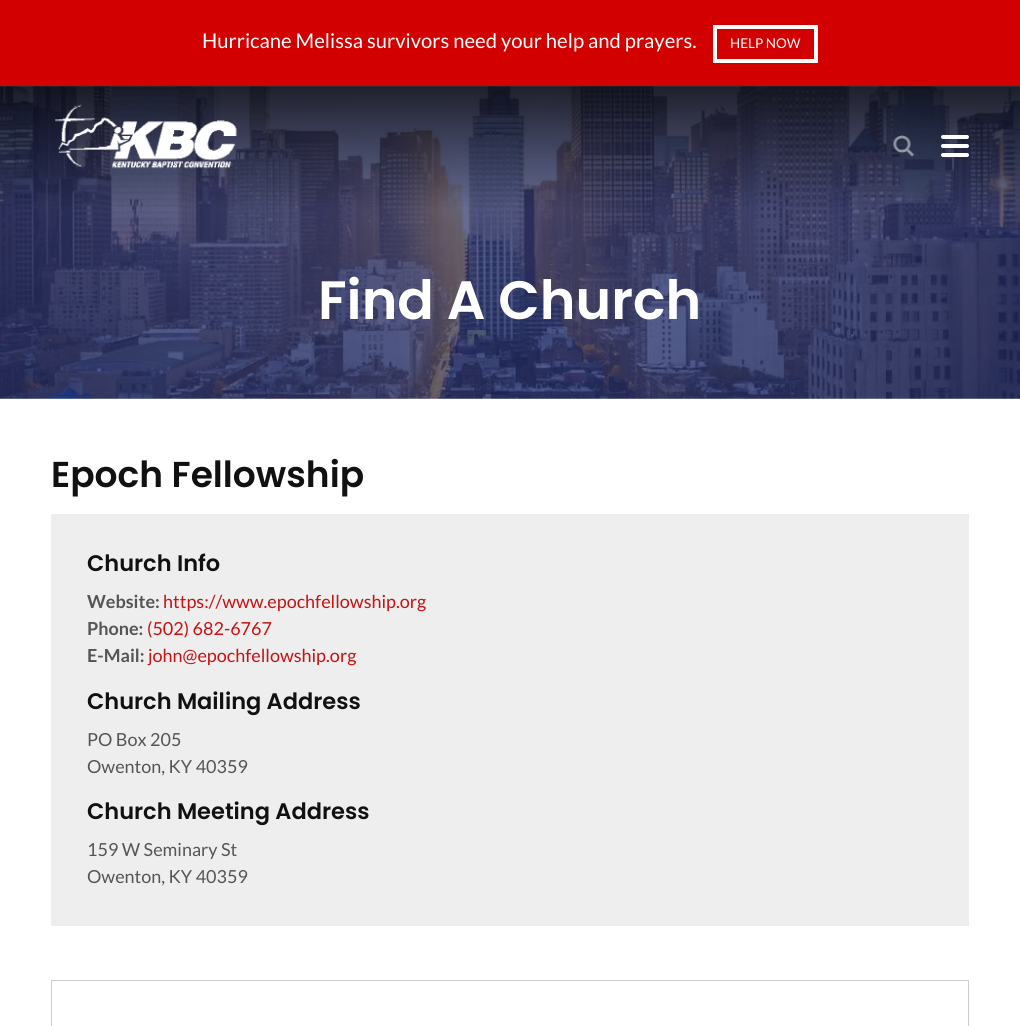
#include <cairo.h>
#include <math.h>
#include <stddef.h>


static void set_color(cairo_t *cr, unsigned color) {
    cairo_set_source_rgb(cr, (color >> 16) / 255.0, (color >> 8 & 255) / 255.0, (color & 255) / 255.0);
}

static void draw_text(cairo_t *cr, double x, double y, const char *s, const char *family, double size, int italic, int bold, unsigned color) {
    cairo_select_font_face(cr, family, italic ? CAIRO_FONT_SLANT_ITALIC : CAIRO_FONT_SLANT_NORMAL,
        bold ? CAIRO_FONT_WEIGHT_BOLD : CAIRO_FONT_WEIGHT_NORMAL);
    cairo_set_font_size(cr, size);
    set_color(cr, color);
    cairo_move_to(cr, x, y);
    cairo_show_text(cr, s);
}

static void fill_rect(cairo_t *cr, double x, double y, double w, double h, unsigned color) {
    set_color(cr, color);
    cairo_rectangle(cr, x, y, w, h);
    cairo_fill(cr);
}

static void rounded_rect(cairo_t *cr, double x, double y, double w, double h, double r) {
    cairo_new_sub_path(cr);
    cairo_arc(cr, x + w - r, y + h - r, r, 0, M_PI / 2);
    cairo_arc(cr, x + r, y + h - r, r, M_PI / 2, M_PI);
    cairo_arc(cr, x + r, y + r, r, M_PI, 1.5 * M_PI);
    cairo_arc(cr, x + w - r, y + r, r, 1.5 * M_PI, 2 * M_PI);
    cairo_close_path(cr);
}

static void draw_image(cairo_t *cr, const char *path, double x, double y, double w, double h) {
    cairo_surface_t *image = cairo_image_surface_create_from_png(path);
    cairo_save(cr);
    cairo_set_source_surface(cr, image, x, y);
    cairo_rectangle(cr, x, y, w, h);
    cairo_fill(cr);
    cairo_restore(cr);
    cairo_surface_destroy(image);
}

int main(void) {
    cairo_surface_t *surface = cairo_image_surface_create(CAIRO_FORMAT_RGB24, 1020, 1026);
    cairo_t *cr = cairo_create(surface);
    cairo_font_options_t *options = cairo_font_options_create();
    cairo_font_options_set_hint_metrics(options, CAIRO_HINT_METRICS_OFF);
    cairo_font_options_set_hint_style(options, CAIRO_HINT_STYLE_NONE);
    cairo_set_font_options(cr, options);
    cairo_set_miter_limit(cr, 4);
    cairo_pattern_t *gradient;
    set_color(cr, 0xFFFFFF);
    cairo_paint(cr);
    fill_rect(cr, 0, 0, 1020, 86, 0xD30000);
    draw_text(cr, 202, 48, "Hurricane Melissa survivors need your help and prayers.", "Lato", 20.25, 0, 0, 0xFFFFFF);
    cairo_rectangle(cr, 715, 27, 101, 34);
    cairo_set_line_width(cr, 4);
    cairo_stroke(cr);
    draw_text(cr, 730, 48, "HELP NOW", "Lato", 13.5, 0, 0, 0xFFFFFF);
    draw_image(cr, "assets/img3.png", 0, 86, 1020, 313);
    gradient = cairo_pattern_create_linear(510, 86, 510, 399);
    cairo_pattern_add_color_stop_rgba(gradient, 0, 0, 0, 0, 0.7);
    cairo_pattern_add_color_stop_rgba(gradient, 0.4, 0, 0, 0, 0);
    cairo_set_source(cr, gradient);
    cairo_pattern_destroy(gradient);
    cairo_rectangle(cr, 0, 86, 1020, 121);
    cairo_fill(cr);
    draw_image(cr, "assets/img1.png", 55, 104, 182, 65);
    draw_image(cr, "assets/img2.png", 893, 135, 22, 22);
    set_color(cr, 0xFFFFFF);
    rounded_rect(cr, 941, 135, 28, 4, 2);
    cairo_fill(cr);
    rounded_rect(cr, 941, 144, 28, 4, 2);
    cairo_fill(cr);
    rounded_rect(cr, 941, 153, 28, 4, 2);
    cairo_fill(cr);
    draw_text(cr, 318, 319, "Find A Church", "Poppins SemiBold", 54, 0, 0, 0xFFFFFF);
    draw_text(cr, 51, 487, "Epoch Fellowship", "Poppins SemiBold", 36, 0, 0, 0x111111);
    fill_rect(cr, 51, 514, 918, 412, 0xEEEEEE);
    draw_text(cr, 87, 571, "Church Info", "Poppins SemiBold", 22.5, 0, 0, 0x111111);
    draw_text(cr, 87, 608, "Website:", "Lato", 18, 0, 1, 0x555555);
    draw_text(cr, 163, 608, "https://www.epochfellowship.org", "Lato", 18, 0, 0, 0xC61212);
    draw_text(cr, 87, 635, "Phone:", "Lato", 18, 0, 1, 0x555555);
    draw_text(cr, 147, 635, "(502) 682-6767", "Lato", 18, 0, 0, 0xC61212);
    draw_text(cr, 87, 662, "E-Mail:", "Lato", 18, 0, 1, 0x555555);
    draw_text(cr, 148, 662, "john@epochfellowship.org", "Lato", 18, 0, 0, 0xC61212);
    draw_text(cr, 87, 709, "Church Mailing Address", "Poppins SemiBold", 22.5, 0, 0, 0x111111);
    draw_text(cr, 87, 746, "PO Box 205", "Lato", 18, 0, 0, 0x555555);
    draw_text(cr, 87, 773, "Owenton, KY 40359", "Lato", 18, 0, 0, 0x555555);
    draw_text(cr, 87, 819, "Church Meeting Address", "Poppins SemiBold", 22.5, 0, 0, 0x111111);
    draw_text(cr, 87, 856, "159 W Seminary St", "Lato", 18, 0, 0, 0x555555);
    draw_text(cr, 87, 883, "Owenton, KY 40359", "Lato", 18, 0, 0, 0x555555);
    cairo_rectangle(cr, 51.5, 980.5, 917, 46);
    set_color(cr, 0xCCCCCC);
    cairo_set_line_width(cr, 1);
    cairo_stroke(cr);
    cairo_surface_write_to_png(surface, "output.png");
    cairo_font_options_destroy(options);
    cairo_destroy(cr);
    cairo_surface_destroy(surface);
    return 0;
}
